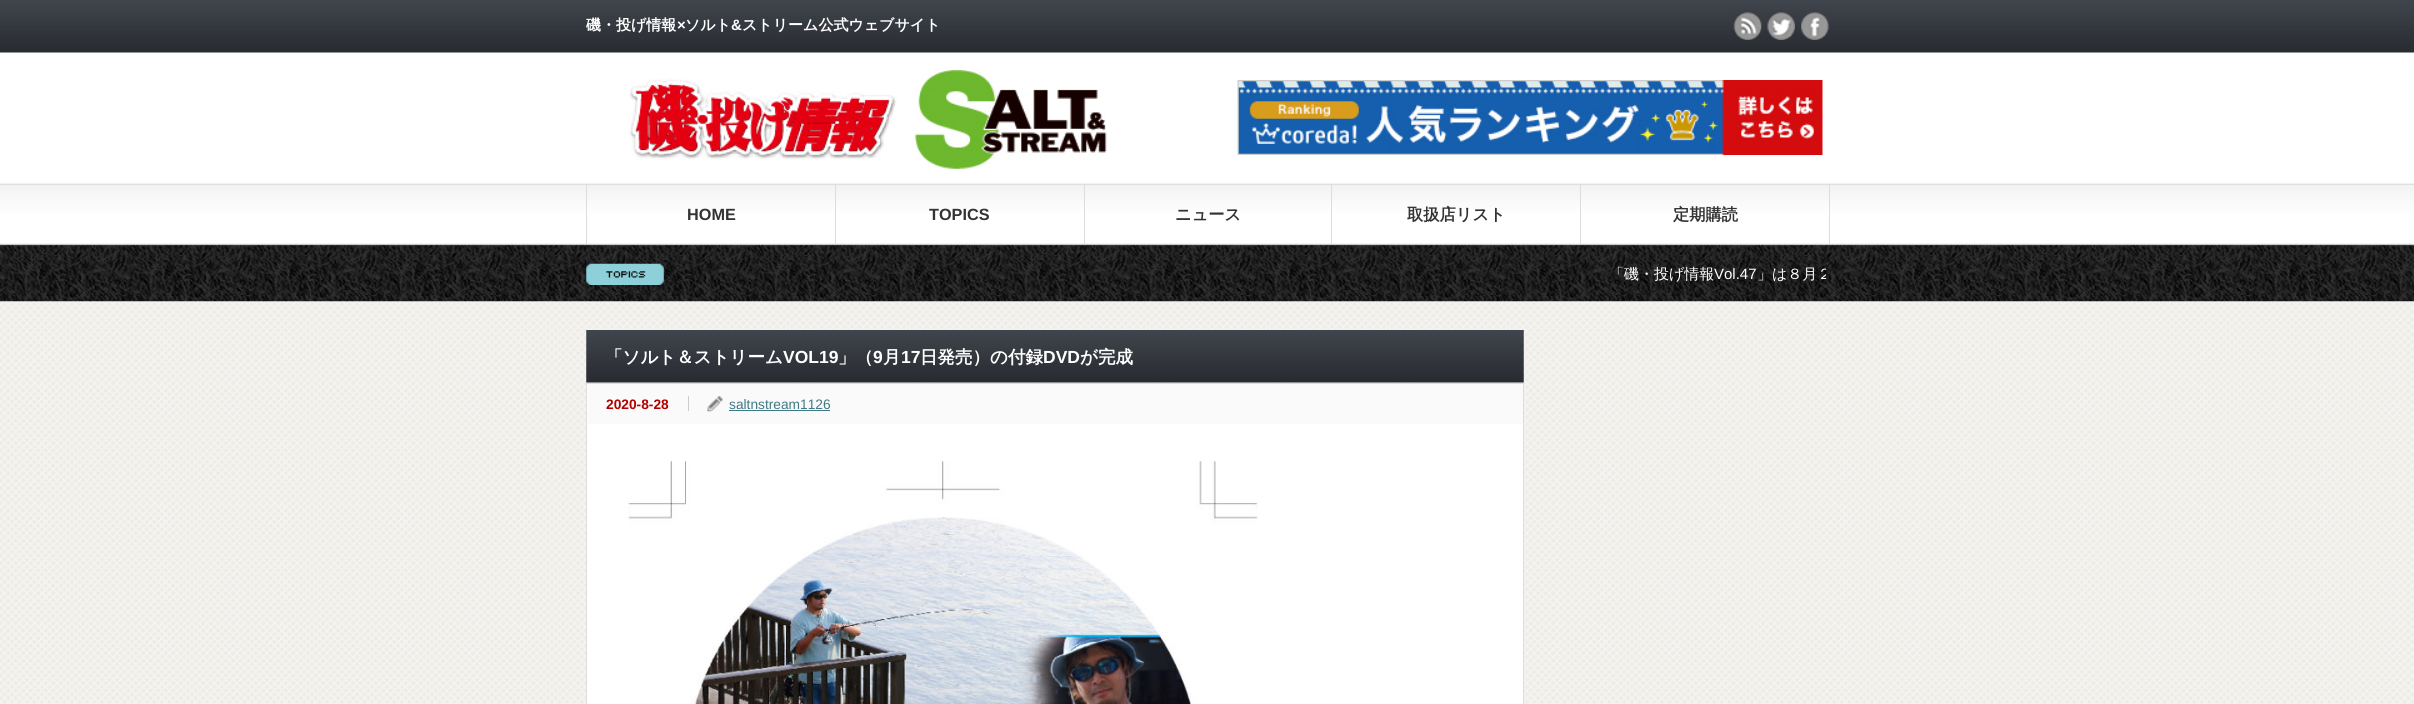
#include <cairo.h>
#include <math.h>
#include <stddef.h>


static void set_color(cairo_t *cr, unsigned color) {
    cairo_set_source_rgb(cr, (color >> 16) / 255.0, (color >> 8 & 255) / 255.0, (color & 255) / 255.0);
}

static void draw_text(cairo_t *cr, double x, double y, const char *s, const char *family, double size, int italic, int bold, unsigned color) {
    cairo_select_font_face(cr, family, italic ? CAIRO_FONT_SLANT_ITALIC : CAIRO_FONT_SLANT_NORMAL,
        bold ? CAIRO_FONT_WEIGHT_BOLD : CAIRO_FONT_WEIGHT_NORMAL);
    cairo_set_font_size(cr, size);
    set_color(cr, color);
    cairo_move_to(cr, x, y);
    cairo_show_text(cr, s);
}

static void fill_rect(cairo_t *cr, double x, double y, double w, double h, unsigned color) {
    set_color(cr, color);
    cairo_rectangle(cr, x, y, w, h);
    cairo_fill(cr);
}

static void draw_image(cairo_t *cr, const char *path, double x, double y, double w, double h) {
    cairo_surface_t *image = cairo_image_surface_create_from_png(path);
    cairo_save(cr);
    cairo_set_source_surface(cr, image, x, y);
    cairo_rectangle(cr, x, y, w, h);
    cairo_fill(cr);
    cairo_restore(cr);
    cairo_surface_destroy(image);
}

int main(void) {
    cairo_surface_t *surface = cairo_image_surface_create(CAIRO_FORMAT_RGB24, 2414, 704);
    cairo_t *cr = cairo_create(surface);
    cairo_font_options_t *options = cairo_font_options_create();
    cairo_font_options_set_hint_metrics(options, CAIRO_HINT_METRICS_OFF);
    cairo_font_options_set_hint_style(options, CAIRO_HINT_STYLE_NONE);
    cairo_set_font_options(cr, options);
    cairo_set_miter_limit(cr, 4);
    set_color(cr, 0xFFFFFF);
    cairo_paint(cr);
    draw_image(cr, "assets/img1.png", 0, 301, 2414, 403);
    draw_image(cr, "assets/img2.png", 0, 0, 2414, 302);
    draw_text(cr, 586, 30, "磯・投げ情報", "WenQuanYi Zen Hei", 15, 0, 1, 0xFFFFFF);
    draw_text(cr, 677, 30, "×", "Liberation Sans", 15, 0, 1, 0xFFFFFF);
    draw_text(cr, 685, 30, "ソルト", "WenQuanYi Zen Hei", 15, 0, 1, 0xFFFFFF);
    draw_text(cr, 731, 30, "&", "Liberation Sans", 15, 0, 1, 0xFFFFFF);
    draw_text(cr, 742, 30, "ストリーム公式ウェブサイト", "WenQuanYi Zen Hei", 15, 0, 1, 0xFFFFFF);
    draw_image(cr, "assets/img3.png", 1733, 12, 29, 28);
    draw_image(cr, "assets/img4.png", 1767, 12, 28, 28);
    draw_image(cr, "assets/img5.png", 1801, 12, 28, 28);
    draw_image(cr, "assets/img6.png", 629, 70, 478, 99);
    draw_image(cr, "assets/img7.png", 1237, 80, 586, 75);
    fill_rect(cr, 1829, 185, 1, 59, 0xDDDDDD);
    fill_rect(cr, 586, 185, 1, 59, 0xDDDDDD);
    draw_text(cr, 687, 220, "HOME", "Liberation Sans", 16.25, 0, 1, 0x333333);
    fill_rect(cr, 835, 185, 1, 59, 0xDDDDDD);
    draw_text(cr, 929, 220, "TOPICS", "Liberation Sans", 16.25, 0, 1, 0x333333);
    fill_rect(cr, 1084, 185, 1, 59, 0xDDDDDD);
    draw_text(cr, 1175, 220, "ニュース", "WenQuanYi Zen Hei", 16.25, 0, 1, 0x333333);
    fill_rect(cr, 1331, 185, 1, 59, 0xDDDDDD);
    draw_text(cr, 1407, 220, "取扱店リスト", "WenQuanYi Zen Hei", 16.25, 0, 1, 0x333333);
    fill_rect(cr, 1580, 185, 1, 59, 0xDDDDDD);
    draw_text(cr, 1673, 220, "定期購読", "WenQuanYi Zen Hei", 16.25, 0, 1, 0x333333);
    draw_image(cr, "assets/img8.png", 586, 263, 78, 22);
    draw_text(cr, 1609, 279, "「磯・投げ情報", "WenQuanYi Zen Hei Medium", 15, 0, 0, 0xFFFFFF);
    draw_text(cr, 1714, 279, "Vol.47", "Liberation Sans", 15, 0, 0, 0xFFFFFF);
    cairo_save(cr);
    cairo_rectangle(cr, 681, 260, 1145, 29);
    cairo_clip(cr);
    draw_text(cr, 1757, 279, "」は８月２", "WenQuanYi Zen Hei Medium", 15, 0, 0, 0xFFFFFF);
    cairo_restore(cr);
    draw_image(cr, "assets/img9.png", 586, 330, 938, 53);
    draw_text(cr, 605, 363, "「ソルト＆ストリーム", "WenQuanYi Zen Hei", 17.5, 0, 1, 0xFFFFFF);
    draw_text(cr, 783, 363, "VOL19", "Liberation Sans", 17.5, 0, 1, 0xFFFFFF);
    draw_text(cr, 838, 363, "」（", "WenQuanYi Zen Hei", 17.5, 0, 1, 0xFFFFFF);
    draw_text(cr, 873, 363, "9", "Liberation Sans", 17.5, 0, 1, 0xFFFFFF);
    draw_text(cr, 883, 363, "月", "WenQuanYi Zen Hei", 17.5, 0, 1, 0xFFFFFF);
    draw_text(cr, 901, 363, "17", "Liberation Sans", 17.5, 0, 1, 0xFFFFFF);
    draw_text(cr, 920, 363, "日発売）の付録", "WenQuanYi Zen Hei", 17.5, 0, 1, 0xFFFFFF);
    draw_text(cr, 1043, 363, "DVD", "Liberation Sans", 17.5, 0, 1, 0xFFFFFF);
    draw_text(cr, 1080, 363, "が完成", "WenQuanYi Zen Hei", 17.5, 0, 1, 0xFFFFFF);
    cairo_rectangle(cr, 586.5, 383.5, 937, 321);
    cairo_fill_preserve(cr);
    set_color(cr, 0xDDDDDD);
    cairo_set_line_width(cr, 1);
    cairo_stroke(cr);
    fill_rect(cr, 588, 384, 935, 40, 0xFAFAFA);
    fill_rect(cr, 688, 396, 1, 15, 0xCCCCCC);
    draw_text(cr, 606, 409, "2020-8-28", "Liberation Sans", 13.75, 0, 1, 0xB20000);
    draw_image(cr, "assets/img10.png", 707, 396, 16, 16);
    draw_text(cr, 729, 409, "saltnstream1126", "Liberation Sans", 13.75, 0, 0, 0x3F7985);
    fill_rect(cr, 729, 410, 101, 1, 0x3F7985);
    draw_image(cr, "assets/img11.png", 628, 461, 630, 243);
    cairo_surface_write_to_png(surface, "output.png");
    cairo_font_options_destroy(options);
    cairo_destroy(cr);
    cairo_surface_destroy(surface);
    return 0;
}
